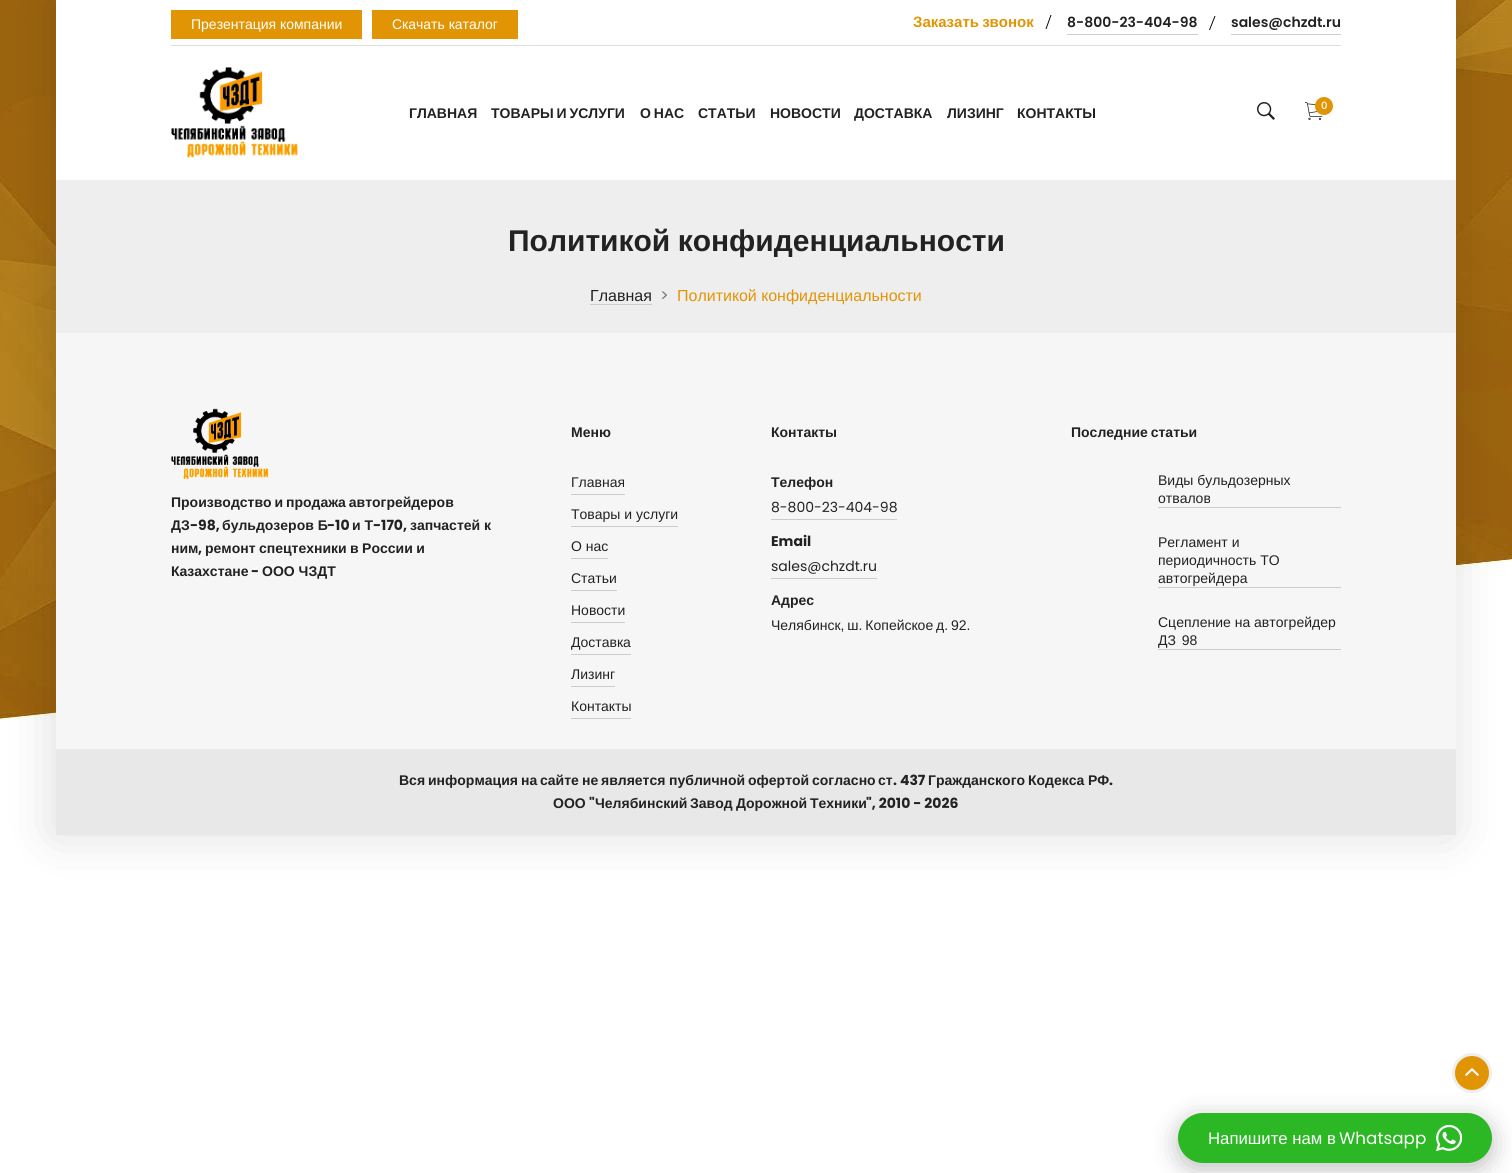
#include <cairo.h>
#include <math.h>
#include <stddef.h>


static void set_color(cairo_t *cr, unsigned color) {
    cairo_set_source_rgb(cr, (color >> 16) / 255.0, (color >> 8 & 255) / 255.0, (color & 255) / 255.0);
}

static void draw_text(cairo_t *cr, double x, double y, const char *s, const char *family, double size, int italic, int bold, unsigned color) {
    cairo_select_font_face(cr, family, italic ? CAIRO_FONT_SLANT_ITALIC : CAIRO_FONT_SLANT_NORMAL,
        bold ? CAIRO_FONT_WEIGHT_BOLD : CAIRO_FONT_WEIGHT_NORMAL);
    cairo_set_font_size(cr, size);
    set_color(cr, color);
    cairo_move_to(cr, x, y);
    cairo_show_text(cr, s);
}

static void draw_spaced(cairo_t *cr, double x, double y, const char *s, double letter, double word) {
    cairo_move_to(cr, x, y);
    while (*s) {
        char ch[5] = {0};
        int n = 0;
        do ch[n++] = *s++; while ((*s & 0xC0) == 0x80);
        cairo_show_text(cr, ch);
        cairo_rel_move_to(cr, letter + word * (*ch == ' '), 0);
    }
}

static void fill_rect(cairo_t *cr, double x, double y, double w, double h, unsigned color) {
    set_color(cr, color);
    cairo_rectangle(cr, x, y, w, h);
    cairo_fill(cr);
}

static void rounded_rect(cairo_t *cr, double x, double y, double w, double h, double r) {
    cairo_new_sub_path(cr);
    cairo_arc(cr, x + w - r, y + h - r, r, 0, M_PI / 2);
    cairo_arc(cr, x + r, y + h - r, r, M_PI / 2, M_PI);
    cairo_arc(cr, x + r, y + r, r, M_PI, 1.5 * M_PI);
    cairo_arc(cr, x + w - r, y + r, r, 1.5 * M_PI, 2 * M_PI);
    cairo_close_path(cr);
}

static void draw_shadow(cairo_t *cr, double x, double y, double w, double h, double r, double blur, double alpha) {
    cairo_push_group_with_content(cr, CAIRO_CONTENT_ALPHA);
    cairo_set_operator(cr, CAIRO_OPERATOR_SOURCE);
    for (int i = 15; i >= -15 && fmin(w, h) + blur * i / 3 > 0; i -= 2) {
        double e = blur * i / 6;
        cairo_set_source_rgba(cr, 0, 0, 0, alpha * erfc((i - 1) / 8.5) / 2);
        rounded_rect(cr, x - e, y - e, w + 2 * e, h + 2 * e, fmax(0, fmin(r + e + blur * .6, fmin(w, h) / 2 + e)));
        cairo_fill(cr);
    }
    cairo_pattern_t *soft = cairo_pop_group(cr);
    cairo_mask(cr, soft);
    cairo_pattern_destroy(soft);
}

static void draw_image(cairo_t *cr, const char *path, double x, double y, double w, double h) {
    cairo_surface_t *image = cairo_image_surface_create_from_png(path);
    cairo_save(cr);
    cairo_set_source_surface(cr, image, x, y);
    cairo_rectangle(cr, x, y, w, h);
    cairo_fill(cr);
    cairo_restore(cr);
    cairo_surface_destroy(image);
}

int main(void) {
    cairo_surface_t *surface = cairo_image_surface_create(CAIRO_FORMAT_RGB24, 1512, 1173);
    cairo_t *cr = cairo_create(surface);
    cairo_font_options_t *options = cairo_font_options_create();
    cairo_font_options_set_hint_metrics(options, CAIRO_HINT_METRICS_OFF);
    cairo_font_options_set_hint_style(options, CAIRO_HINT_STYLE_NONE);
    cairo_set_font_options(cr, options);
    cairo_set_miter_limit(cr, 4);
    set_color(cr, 0xFFFFFF);
    cairo_paint(cr);
    draw_image(cr, "assets/img1.png", 0, 0, 1512, 721);
    set_color(cr, 0x000000);
    draw_shadow(cr, 55, 2, 1396, 831, 0, 25, 0.14);
    fill_rect(cr, 56, 0, 1400, 180, 0xFFFFFF);
    fill_rect(cr, 171, 45, 1170, 1, 0xDDDDDD);
    fill_rect(cr, 171, 10, 191, 29, 0xE19504);
    draw_text(cr, 191, 29, "Презентация компании", "Liberation Sans", 14, 0, 0, 0xFFFFFF);
    fill_rect(cr, 372, 10, 146, 29, 0xE19504);
    draw_text(cr, 392, 29, "Скачать каталог", "Liberation Sans", 14, 0, 0, 0xFFFFFF);
    cairo_select_font_face(cr, "Liberation Sans", CAIRO_FONT_SLANT_NORMAL, CAIRO_FONT_WEIGHT_BOLD);
    cairo_set_font_size(cr, 15);
    set_color(cr, 0xE19504);
    draw_spaced(cr, 913, 27, "Заказать звонок", 0, -1);
    set_color(cr, 0x000000);
    cairo_new_path(cr);
    cairo_move_to(cr, 1050.5, 15);
    cairo_line_to(cr, 1051.5, 15);
    cairo_line_to(cr, 1046.5, 29);
    cairo_line_to(cr, 1045.5, 29);
    cairo_close_path(cr);
    cairo_fill(cr);
    fill_rect(cr, 1067, 34, 131, 1, 0xCCCCCC);
    draw_text(cr, 1067, 27, "8-800-23-404-98", "Poppins SemiBold", 14, 0, 0, 0x222222);
    set_color(cr, 0x000000);
    cairo_new_path(cr);
    cairo_move_to(cr, 1214.5, 16);
    cairo_line_to(cr, 1215.5, 16);
    cairo_line_to(cr, 1210, 30);
    cairo_line_to(cr, 1209, 30);
    cairo_close_path(cr);
    cairo_fill(cr);
    fill_rect(cr, 1231, 34, 110, 1, 0xCCCCCC);
    draw_text(cr, 1231, 27, "sales@chzdt.ru", "Poppins SemiBold", 14, 0, 0, 0x222222);
    draw_image(cr, "assets/img2.png", 171, 67, 128, 91);
    draw_image(cr, "assets/img3.png", 1257, 102, 18, 18);
    draw_image(cr, "assets/img4.png", 1305, 102, 18, 18);
    set_color(cr, 0xE19504);
    cairo_arc(cr, 1324, 106, 9, 0, 2 * M_PI);
    cairo_fill(cr);
    draw_text(cr, 1321, 109, "0", "Poppins Medium", 10, 0, 0, 0xFFFFFF);
    draw_text(cr, 409, 118, "ГЛАВНАЯ", "Liberation Sans", 14, 0, 1, 0x222222);
    draw_spaced(cr, 491, 118, "ТОВАРЫ И УСЛУГИ", 0, -1);
    draw_spaced(cr, 640, 118, "О НАС", 0, -1);
    draw_text(cr, 698, 118, "СТАТЬИ", "Liberation Sans", 14, 0, 1, 0x222222);
    draw_text(cr, 770, 118, "НОВОСТИ", "Liberation Sans", 14, 0, 1, 0x222222);
    draw_text(cr, 854, 118, "ДОСТАВКА", "Liberation Sans", 14, 0, 1, 0x222222);
    draw_text(cr, 947, 118, "ЛИЗИНГ", "Liberation Sans", 14, 0, 1, 0x222222);
    draw_text(cr, 1017, 118, "КОНТАКТЫ", "Liberation Sans", 14, 0, 1, 0x222222);
    fill_rect(cr, 56, 180, 1400, 153, 0xEEEEEE);
    cairo_set_font_size(cr, 30);
    set_color(cr, 0x222222);
    draw_spaced(cr, 508, 251, "Политикой конфиденциальности", 0, -1);
    fill_rect(cr, 590, 304, 62, 1, 0xCCCCCC);
    draw_text(cr, 590, 301, "Главная", "Liberation Sans", 16, 0, 0, 0x222222);
    draw_text(cr, 660, 301, ">", "Poppins", 16, 0, 0, 0x6C757D);
    draw_text(cr, 677, 301, "Политикой конфиденциальности", "Liberation Sans", 16, 0, 0, 0xE19504);
    fill_rect(cr, 56, 333, 1400, 416, 0xF6F6F6);
    draw_image(cr, "assets/img5.png", 171, 408, 98, 72);
    cairo_select_font_face(cr, "Liberation Sans", CAIRO_FONT_SLANT_NORMAL, CAIRO_FONT_WEIGHT_BOLD);
    cairo_set_font_size(cr, 14);
    set_color(cr, 0x222222);
    draw_spaced(cr, 171, 507, "Производство и продажа автогрейдеров", 0, -1);
    draw_text(cr, 171, 530, "ДЗ", "Liberation Sans", 14, 0, 1, 0x222222);
    draw_text(cr, 190, 530, "-98,", "Poppins", 14, 0, 1, 0x222222);
    draw_text(cr, 222, 530, "бульдозеров Б", "Liberation Sans", 14, 0, 1, 0x222222);
    draw_text(cr, 327, 530, "-10", "Poppins", 14, 0, 1, 0x222222);
    draw_text(cr, 352, 530, "и Т", "Liberation Sans", 14, 0, 1, 0x222222);
    draw_text(cr, 373, 530, "-170,", "Poppins", 14, 0, 1, 0x222222);
    draw_text(cr, 410, 530, "запчастей к", "Liberation Sans", 14, 0, 1, 0x222222);
    draw_text(cr, 171, 553, "ним", "Liberation Sans", 14, 0, 1, 0x222222);
    draw_text(cr, 198, 553, ",", "Poppins", 14, 0, 1, 0x222222);
    cairo_select_font_face(cr, "Liberation Sans", CAIRO_FONT_SLANT_NORMAL, CAIRO_FONT_WEIGHT_BOLD);
    draw_spaced(cr, 205, 553, "ремонт спецтехники в России и", 0, -0.5);
    draw_text(cr, 171, 576, "Казахстане", "Liberation Sans", 14, 0, 1, 0x222222);
    draw_text(cr, 251, 576, "-", "Poppins", 14, 0, 1, 0x222222);
    draw_text(cr, 262, 576, "ООО ЧЗДТ", "Liberation Sans", 14, 0, 1, 0x222222);
    draw_text(cr, 571, 437, "Меню", "Liberation Sans", 14, 0, 1, 0x222222);
    fill_rect(cr, 571, 494, 54, 1, 0xCCCCCC);
    draw_text(cr, 571, 487, "Главная", "Liberation Sans", 14, 0, 0, 0x222222);
    fill_rect(cr, 571, 526, 107, 1, 0xCCCCCC);
    draw_text(cr, 571, 519, "Товары и услуги", "Liberation Sans", 14, 0, 0, 0x222222);
    fill_rect(cr, 571, 558, 37, 1, 0xCCCCCC);
    draw_text(cr, 571, 551, "О нас", "Liberation Sans", 14, 0, 0, 0x222222);
    fill_rect(cr, 571, 590, 46, 1, 0xCCCCCC);
    draw_text(cr, 571, 583, "Статьи", "Liberation Sans", 14, 0, 0, 0x222222);
    fill_rect(cr, 571, 622, 54, 1, 0xCCCCCC);
    draw_text(cr, 571, 615, "Новости", "Liberation Sans", 14, 0, 0, 0x222222);
    fill_rect(cr, 571, 654, 60, 1, 0xCCCCCC);
    draw_text(cr, 571, 647, "Доставка", "Liberation Sans", 14, 0, 0, 0x222222);
    fill_rect(cr, 571, 686, 44, 1, 0xCCCCCC);
    draw_text(cr, 571, 679, "Лизинг", "Liberation Sans", 14, 0, 0, 0x222222);
    fill_rect(cr, 571, 718, 60, 1, 0xCCCCCC);
    draw_text(cr, 571, 711, "Контакты", "Liberation Sans", 14, 0, 0, 0x222222);
    draw_text(cr, 771, 437, "Контакты", "Liberation Sans", 14, 0, 1, 0x222222);
    draw_text(cr, 771, 487, "Телефон", "Liberation Sans", 14, 0, 1, 0x222222);
    fill_rect(cr, 771, 519, 126, 1, 0xCCCCCC);
    draw_text(cr, 771, 512, "8-800-23-404-98", "Poppins", 14, 0, 0, 0x222222);
    draw_text(cr, 771, 546, "Email", "Poppins", 14, 0, 1, 0x222222);
    fill_rect(cr, 771, 578, 106, 1, 0xCCCCCC);
    draw_text(cr, 771, 571, "sales@chzdt.ru", "Poppins", 14, 0, 0, 0x222222);
    draw_text(cr, 771, 605, "Адрес", "Liberation Sans", 14, 0, 1, 0x222222);
    cairo_select_font_face(cr, "Liberation Sans", CAIRO_FONT_SLANT_NORMAL, CAIRO_FONT_WEIGHT_NORMAL);
    draw_spaced(cr, 771, 630, "Челябинск, ш. Копейское д. 92.", 0, -1);
    cairo_select_font_face(cr, "Liberation Sans", CAIRO_FONT_SLANT_NORMAL, CAIRO_FONT_WEIGHT_BOLD);
    draw_spaced(cr, 1071, 437, "Последние статьи", 0, -1);
    fill_rect(cr, 1158, 507, 183, 1, 0xCCCCCC);
    draw_text(cr, 1158, 485, "Виды бульдозерных", "Liberation Sans", 14, 0, 0, 0x222222);
    draw_text(cr, 1158, 503, "отвалов", "Liberation Sans", 14, 0, 0, 0x222222);
    fill_rect(cr, 1158, 587, 183, 1, 0xCCCCCC);
    draw_text(cr, 1158, 547, "Регламент и", "Liberation Sans", 14, 0, 0, 0x222222);
    draw_text(cr, 1158, 565, "периодичность ТО", "Liberation Sans", 14, 0, 0, 0x222222);
    draw_text(cr, 1158, 583, "автогрейдера", "Liberation Sans", 14, 0, 0, 0x222222);
    fill_rect(cr, 1158, 649, 183, 1, 0xCCCCCC);
    draw_text(cr, 1158, 627, "Сцепление на автогрейдер", "Liberation Sans", 14, 0, 0, 0x222222);
    draw_spaced(cr, 1158, 645, "ДЗ 98", 0, 2);
    fill_rect(cr, 56, 749, 1400, 86, 0xE8E8E8);
    draw_text(cr, 399, 785, "Вся", "Liberation Sans", 14, 0, 1, 0x222222);
    draw_text(cr, 428, 785, "информация", "Liberation Sans", 14, 0, 1, 0x222222);
    draw_text(cr, 521, 785, "на", "Liberation Sans", 14, 0, 1, 0x222222);
    draw_text(cr, 540, 785, "сайте", "Liberation Sans", 14, 0, 1, 0x222222);
    draw_text(cr, 582, 785, "не", "Liberation Sans", 14, 0, 1, 0x222222);
    draw_text(cr, 601, 785, "является", "Liberation Sans", 14, 0, 1, 0x222222);
    draw_text(cr, 669, 785, "публичной", "Liberation Sans", 14, 0, 1, 0x222222);
    draw_text(cr, 748, 785, "офертой", "Liberation Sans", 14, 0, 1, 0x222222);
    draw_text(cr, 812, 785, "согласно", "Liberation Sans", 14, 0, 1, 0x222222);
    draw_text(cr, 878, 785, "ст", "Liberation Sans", 14, 0, 1, 0x222222);
    draw_text(cr, 893, 785, ". 437", "Poppins", 14, 0, 1, 0x222222);
    draw_text(cr, 928, 785, "Гражданского", "Liberation Sans", 14, 0, 1, 0x222222);
    draw_text(cr, 1028, 785, "Кодекса", "Liberation Sans", 14, 0, 1, 0x222222);
    draw_text(cr, 1088, 785, "РФ", "Liberation Sans", 14, 0, 1, 0x222222);
    draw_text(cr, 1109, 785, ".", "Poppins", 14, 0, 1, 0x222222);
    draw_text(cr, 553, 808, "ООО", "Liberation Sans", 14, 0, 1, 0x222222);
    draw_text(cr, 589, 808, "\"", "Poppins", 14, 0, 1, 0x222222);
    draw_text(cr, 595, 808, "Челябинский", "Liberation Sans", 14, 0, 1, 0x222222);
    draw_text(cr, 690, 808, "Завод", "Liberation Sans", 14, 0, 1, 0x222222);
    draw_text(cr, 736, 808, "Дорожной", "Liberation Sans", 14, 0, 1, 0x222222);
    draw_text(cr, 810, 808, "Техники", "Liberation Sans", 14, 0, 1, 0x222222);
    draw_text(cr, 866, 808, "\", 2010 - 2026", "Poppins", 14, 0, 1, 0x222222);
    set_color(cr, 0x000000);
    draw_shadow(cr, 1178, 1119, 314, 50, 25, 12.5, 0.25);
    set_color(cr, 0xE19504);
    cairo_arc(cr, 1472, 1073, 18.5, 0, 2 * M_PI);
    cairo_fill_preserve(cr);
    set_color(cr, 0xEEEEEE);
    cairo_set_line_width(cr, 3);
    cairo_stroke(cr);
    draw_image(cr, "assets/img6.png", 1465, 1068, 14, 8);
    set_color(cr, 0x2CB725);
    rounded_rect(cr, 1178, 1113, 314, 50, 25);
    cairo_fill(cr);
    draw_text(cr, 1208, 1144, "Напишите нам в", "Liberation Sans", 16.75, 0, 0, 0xFFFFFF);
    draw_text(cr, 1339, 1144, "Whatsapp", "Poppins", 16.75, 0, 0, 0xFFFFFF);
    draw_image(cr, "assets/img7.png", 1436, 1124, 26, 28);
    cairo_surface_write_to_png(surface, "output.png");
    cairo_font_options_destroy(options);
    cairo_destroy(cr);
    cairo_surface_destroy(surface);
    return 0;
}
